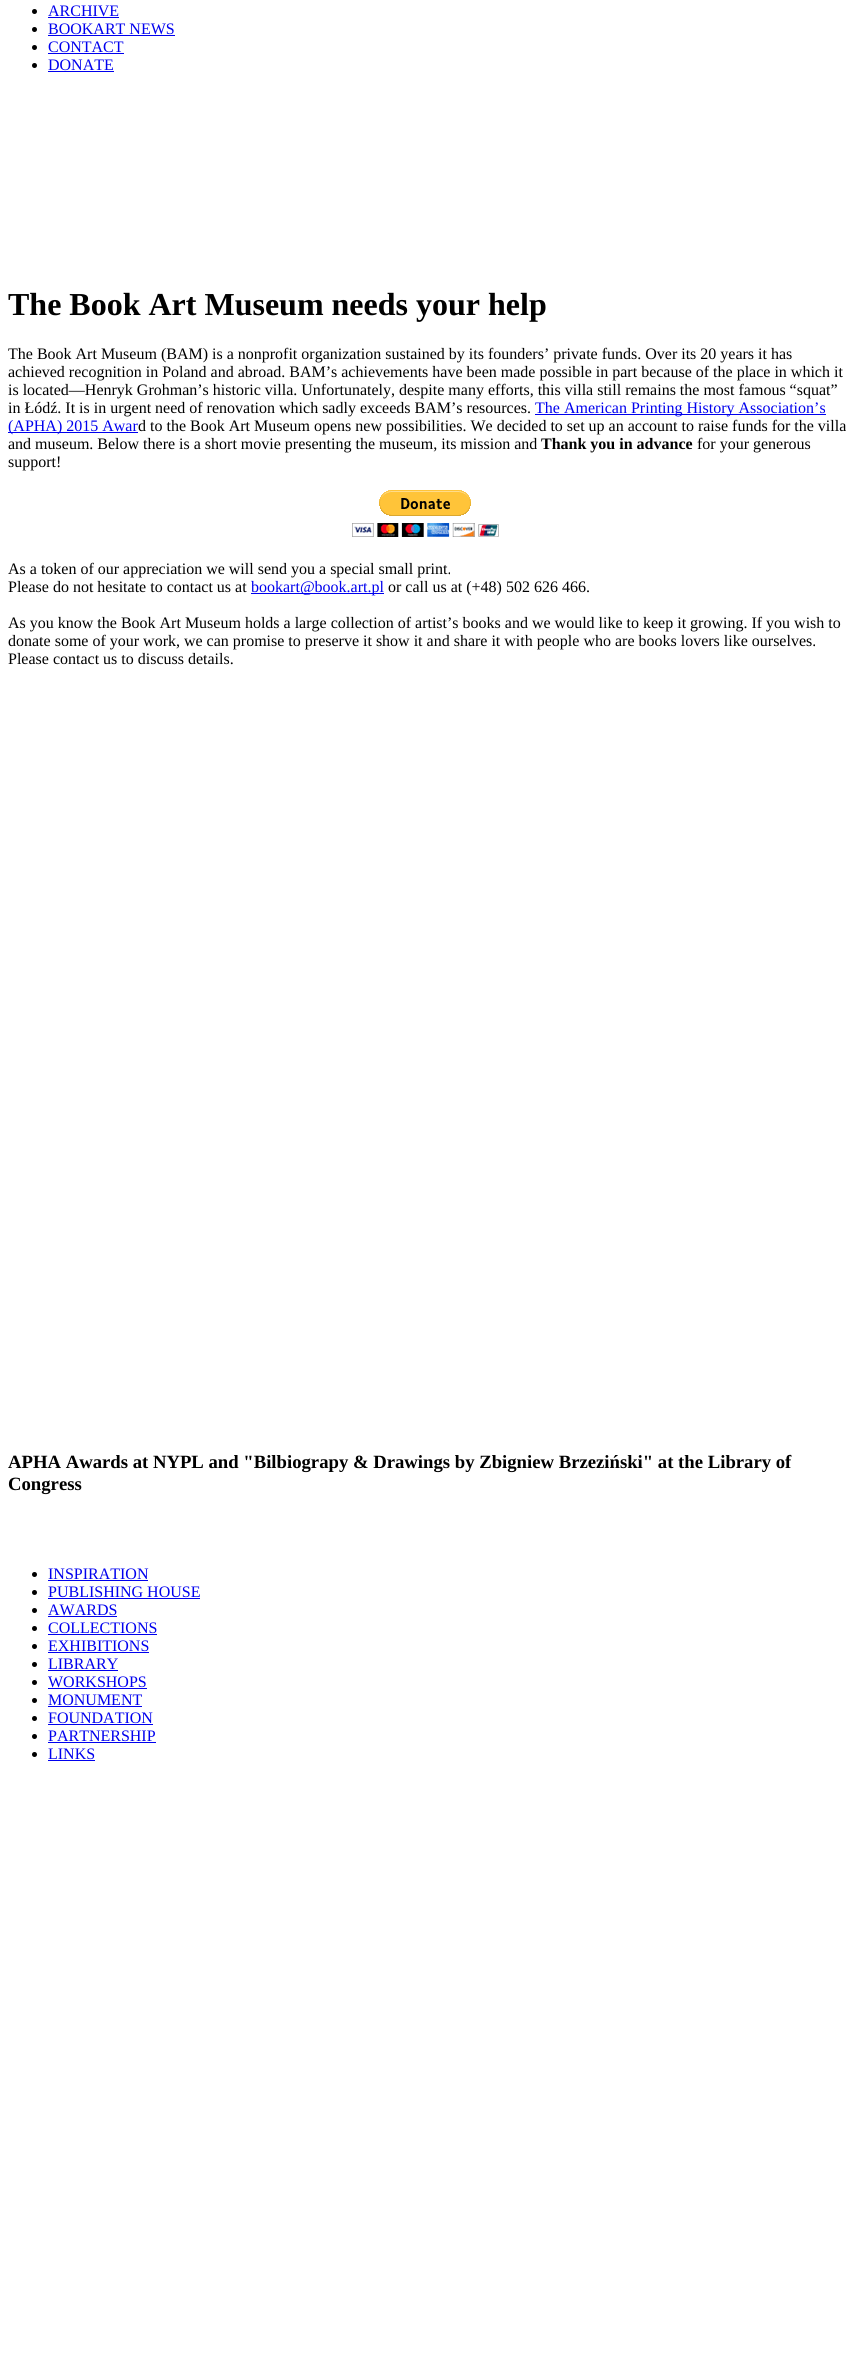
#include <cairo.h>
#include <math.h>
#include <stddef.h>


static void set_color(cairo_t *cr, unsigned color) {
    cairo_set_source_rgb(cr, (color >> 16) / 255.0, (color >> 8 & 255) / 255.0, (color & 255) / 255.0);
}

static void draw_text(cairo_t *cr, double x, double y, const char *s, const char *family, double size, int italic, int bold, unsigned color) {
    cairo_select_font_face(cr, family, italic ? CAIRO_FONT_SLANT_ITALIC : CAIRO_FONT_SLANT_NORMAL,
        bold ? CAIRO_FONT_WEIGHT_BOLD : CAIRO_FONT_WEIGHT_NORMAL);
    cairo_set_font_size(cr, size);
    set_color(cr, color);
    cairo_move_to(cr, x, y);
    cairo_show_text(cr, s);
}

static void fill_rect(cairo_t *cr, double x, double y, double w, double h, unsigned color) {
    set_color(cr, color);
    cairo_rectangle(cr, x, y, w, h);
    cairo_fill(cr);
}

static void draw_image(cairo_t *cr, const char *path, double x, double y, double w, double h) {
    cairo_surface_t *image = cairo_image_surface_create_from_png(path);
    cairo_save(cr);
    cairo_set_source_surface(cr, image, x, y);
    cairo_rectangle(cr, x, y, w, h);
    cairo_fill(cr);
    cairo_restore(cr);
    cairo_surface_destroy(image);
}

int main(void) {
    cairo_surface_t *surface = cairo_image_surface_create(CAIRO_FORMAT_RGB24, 855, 2369);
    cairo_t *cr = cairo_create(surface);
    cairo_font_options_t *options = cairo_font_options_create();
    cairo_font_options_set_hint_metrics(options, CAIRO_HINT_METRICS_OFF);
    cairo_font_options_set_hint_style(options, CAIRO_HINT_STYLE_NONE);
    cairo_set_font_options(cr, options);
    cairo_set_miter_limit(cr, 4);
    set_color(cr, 0xFFFFFF);
    cairo_paint(cr);
    set_color(cr, 0x000000);
    cairo_arc(cr, 34.5, 11.5, 2.5, 0, 2 * M_PI);
    cairo_fill(cr);
    draw_text(cr, 48, 16, "ARCHIVE", "Liberation Serif", 16, 0, 0, 0x0000EE);
    fill_rect(cr, 48, 17, 71, 1, 0x0000EE);
    set_color(cr, 0x000000);
    cairo_new_path(cr);
    cairo_arc(cr, 34.5, 29.5, 2.5, 0, 2 * M_PI);
    cairo_fill(cr);
    draw_text(cr, 48, 34, "BOOKART NEWS", "Liberation Serif", 16, 0, 0, 0x0000EE);
    fill_rect(cr, 48, 35, 127, 1, 0x0000EE);
    set_color(cr, 0x000000);
    cairo_new_path(cr);
    cairo_arc(cr, 34.5, 47.5, 2.5, 0, 2 * M_PI);
    cairo_fill(cr);
    draw_text(cr, 48, 52, "CONTACT", "Liberation Serif", 16, 0, 0, 0x0000EE);
    fill_rect(cr, 48, 53, 76, 1, 0x0000EE);
    set_color(cr, 0x000000);
    cairo_new_path(cr);
    cairo_arc(cr, 34.5, 65.5, 2.5, 0, 2 * M_PI);
    cairo_fill(cr);
    draw_text(cr, 48, 70, "DONATE", "Liberation Serif", 16, 0, 0, 0x0000EE);
    fill_rect(cr, 48, 71, 66, 1, 0x0000EE);
    draw_text(cr, 8, 315, "The Book Art Museum needs your help", "Liberation Serif", 32, 0, 1, 0x000000);
    draw_text(cr, 8, 359, "The Book Art Museum (BAM) is a nonprofit organization sustained by its founders’ private funds. Over its 20 years it has", "Liberation Serif", 16, 0, 0, 0x000000);
    draw_text(cr, 8, 377, "achieved recognition in Poland and abroad. BAM’s achievements have been made possible in part because of the place in which it", "Liberation Serif", 16, 0, 0, 0x000000);
    draw_text(cr, 8, 395, "is located—Henryk Grohman’s historic villa. Unfortunately, despite many efforts, this villa still remains the most famous “squat”", "Liberation Serif", 16, 0, 0, 0x000000);
    draw_text(cr, 8, 413, "in Łódź. It is in urgent need of renovation which sadly exceeds BAM’s resources.", "Liberation Serif", 16, 0, 0, 0x000000);
    fill_rect(cr, 535, 414, 291, 1, 0x0000EE);
    draw_text(cr, 535, 413, "The American Printing History Association’s", "Liberation Serif", 16, 0, 0, 0x0000EE);
    fill_rect(cr, 8, 432, 130, 1, 0x0000EE);
    draw_text(cr, 8, 431, "(APHA) 2015 Awar", "Liberation Serif", 16, 0, 0, 0x0000EE);
    draw_text(cr, 138, 431, "d to the Book Art Museum opens new possibilities. We decided to set up an account to raise funds for the villa", "Liberation Serif", 16, 0, 0, 0x000000);
    draw_text(cr, 8, 449, "and museum. Below there is a short movie presenting the museum, its mission and", "Liberation Serif", 16, 0, 0, 0x000000);
    draw_text(cr, 541, 449, "Thank you in advance", "Liberation Serif", 16, 0, 1, 0x000000);
    draw_text(cr, 697, 449, "for your generous", "Liberation Serif", 16, 0, 0, 0x000000);
    draw_text(cr, 8, 467, "support!", "Liberation Serif", 16, 0, 0, 0x000000);
    draw_image(cr, "assets/img1.png", 352, 490, 147, 47);
    draw_text(cr, 8, 574, "As a token of our appreciation we will send you a special small print.", "Liberation Serif", 16, 0, 0, 0x000000);
    draw_text(cr, 8, 592, "Please do not hesitate to contact us at", "Liberation Serif", 16, 0, 0, 0x000000);
    fill_rect(cr, 251, 593, 133, 1, 0x0000EE);
    draw_text(cr, 251, 592, "bookart@book.art.pl", "Liberation Serif", 16, 0, 0, 0x0000EE);
    draw_text(cr, 388, 592, "or call us at (+48) 502 626 466.", "Liberation Serif", 16, 0, 0, 0x000000);
    draw_text(cr, 8, 628, "As you know the Book Art Museum holds a large collection of artist’s books and we would like to keep it growing. If you wish to", "Liberation Serif", 16, 0, 0, 0x000000);
    draw_text(cr, 8, 646, "donate some of your work, we can promise to preserve it show it and share it with people who are books lovers like ourselves.", "Liberation Serif", 16, 0, 0, 0x000000);
    draw_text(cr, 8, 664, "Please contact us to discuss details.", "Liberation Serif", 16, 0, 0, 0x000000);
    draw_text(cr, 8, 1468, "APHA Awards at NYPL and \"Bilbiograpy & Drawings by Zbigniew Brzeziński\" at the Library of", "Liberation Serif", 18.7, 0, 1, 0x000000);
    draw_text(cr, 8, 1490, "Congress", "Liberation Serif", 18.7, 0, 1, 0x000000);
    cairo_new_path(cr);
    cairo_arc(cr, 34.5, 1574.5, 2.5, 0, 2 * M_PI);
    cairo_fill(cr);
    draw_text(cr, 48, 1579, "INSPIRATION", "Liberation Serif", 16, 0, 0, 0x0000EE);
    fill_rect(cr, 48, 1580, 100, 1, 0x0000EE);
    set_color(cr, 0x000000);
    cairo_new_path(cr);
    cairo_arc(cr, 34.5, 1592.5, 2.5, 0, 2 * M_PI);
    cairo_fill(cr);
    draw_text(cr, 48, 1597, "PUBLISHING HOUSE", "Liberation Serif", 16, 0, 0, 0x0000EE);
    fill_rect(cr, 48, 1598, 152, 1, 0x0000EE);
    set_color(cr, 0x000000);
    cairo_new_path(cr);
    cairo_arc(cr, 34.5, 1610.5, 2.5, 0, 2 * M_PI);
    cairo_fill(cr);
    draw_text(cr, 48, 1615, "AWARDS", "Liberation Serif", 16, 0, 0, 0x0000EE);
    fill_rect(cr, 48, 1616, 69, 1, 0x0000EE);
    set_color(cr, 0x000000);
    cairo_new_path(cr);
    cairo_arc(cr, 34.5, 1628.5, 2.5, 0, 2 * M_PI);
    cairo_fill(cr);
    draw_text(cr, 48, 1633, "COLLECTIONS", "Liberation Serif", 16, 0, 0, 0x0000EE);
    fill_rect(cr, 48, 1634, 109, 1, 0x0000EE);
    set_color(cr, 0x000000);
    cairo_new_path(cr);
    cairo_arc(cr, 34.5, 1646.5, 2.5, 0, 2 * M_PI);
    cairo_fill(cr);
    draw_text(cr, 48, 1651, "EXHIBITIONS", "Liberation Serif", 16, 0, 0, 0x0000EE);
    fill_rect(cr, 48, 1652, 101, 1, 0x0000EE);
    set_color(cr, 0x000000);
    cairo_new_path(cr);
    cairo_arc(cr, 34.5, 1664.5, 2.5, 0, 2 * M_PI);
    cairo_fill(cr);
    draw_text(cr, 48, 1669, "LIBRARY", "Liberation Serif", 16, 0, 0, 0x0000EE);
    fill_rect(cr, 48, 1670, 70, 1, 0x0000EE);
    set_color(cr, 0x000000);
    cairo_new_path(cr);
    cairo_arc(cr, 34.5, 1682.5, 2.5, 0, 2 * M_PI);
    cairo_fill(cr);
    draw_text(cr, 48, 1687, "WORKSHOPS", "Liberation Serif", 16, 0, 0, 0x0000EE);
    fill_rect(cr, 48, 1688, 99, 1, 0x0000EE);
    set_color(cr, 0x000000);
    cairo_new_path(cr);
    cairo_arc(cr, 34.5, 1700.5, 2.5, 0, 2 * M_PI);
    cairo_fill(cr);
    draw_text(cr, 48, 1705, "MONUMENT", "Liberation Serif", 16, 0, 0, 0x0000EE);
    fill_rect(cr, 48, 1706, 94, 1, 0x0000EE);
    set_color(cr, 0x000000);
    cairo_new_path(cr);
    cairo_arc(cr, 34.5, 1718.5, 2.5, 0, 2 * M_PI);
    cairo_fill(cr);
    draw_text(cr, 48, 1723, "FOUNDATION", "Liberation Serif", 16, 0, 0, 0x0000EE);
    fill_rect(cr, 48, 1724, 105, 1, 0x0000EE);
    set_color(cr, 0x000000);
    cairo_new_path(cr);
    cairo_arc(cr, 34.5, 1736.5, 2.5, 0, 2 * M_PI);
    cairo_fill(cr);
    draw_text(cr, 48, 1741, "PARTNERSHIP", "Liberation Serif", 16, 0, 0, 0x0000EE);
    fill_rect(cr, 48, 1742, 108, 1, 0x0000EE);
    set_color(cr, 0x000000);
    cairo_new_path(cr);
    cairo_arc(cr, 34.5, 1754.5, 2.5, 0, 2 * M_PI);
    cairo_fill(cr);
    draw_text(cr, 48, 1759, "LINKS", "Liberation Serif", 16, 0, 0, 0x0000EE);
    fill_rect(cr, 48, 1760, 47, 1, 0x0000EE);
    cairo_surface_write_to_png(surface, "output.png");
    cairo_font_options_destroy(options);
    cairo_destroy(cr);
    cairo_surface_destroy(surface);
    return 0;
}
